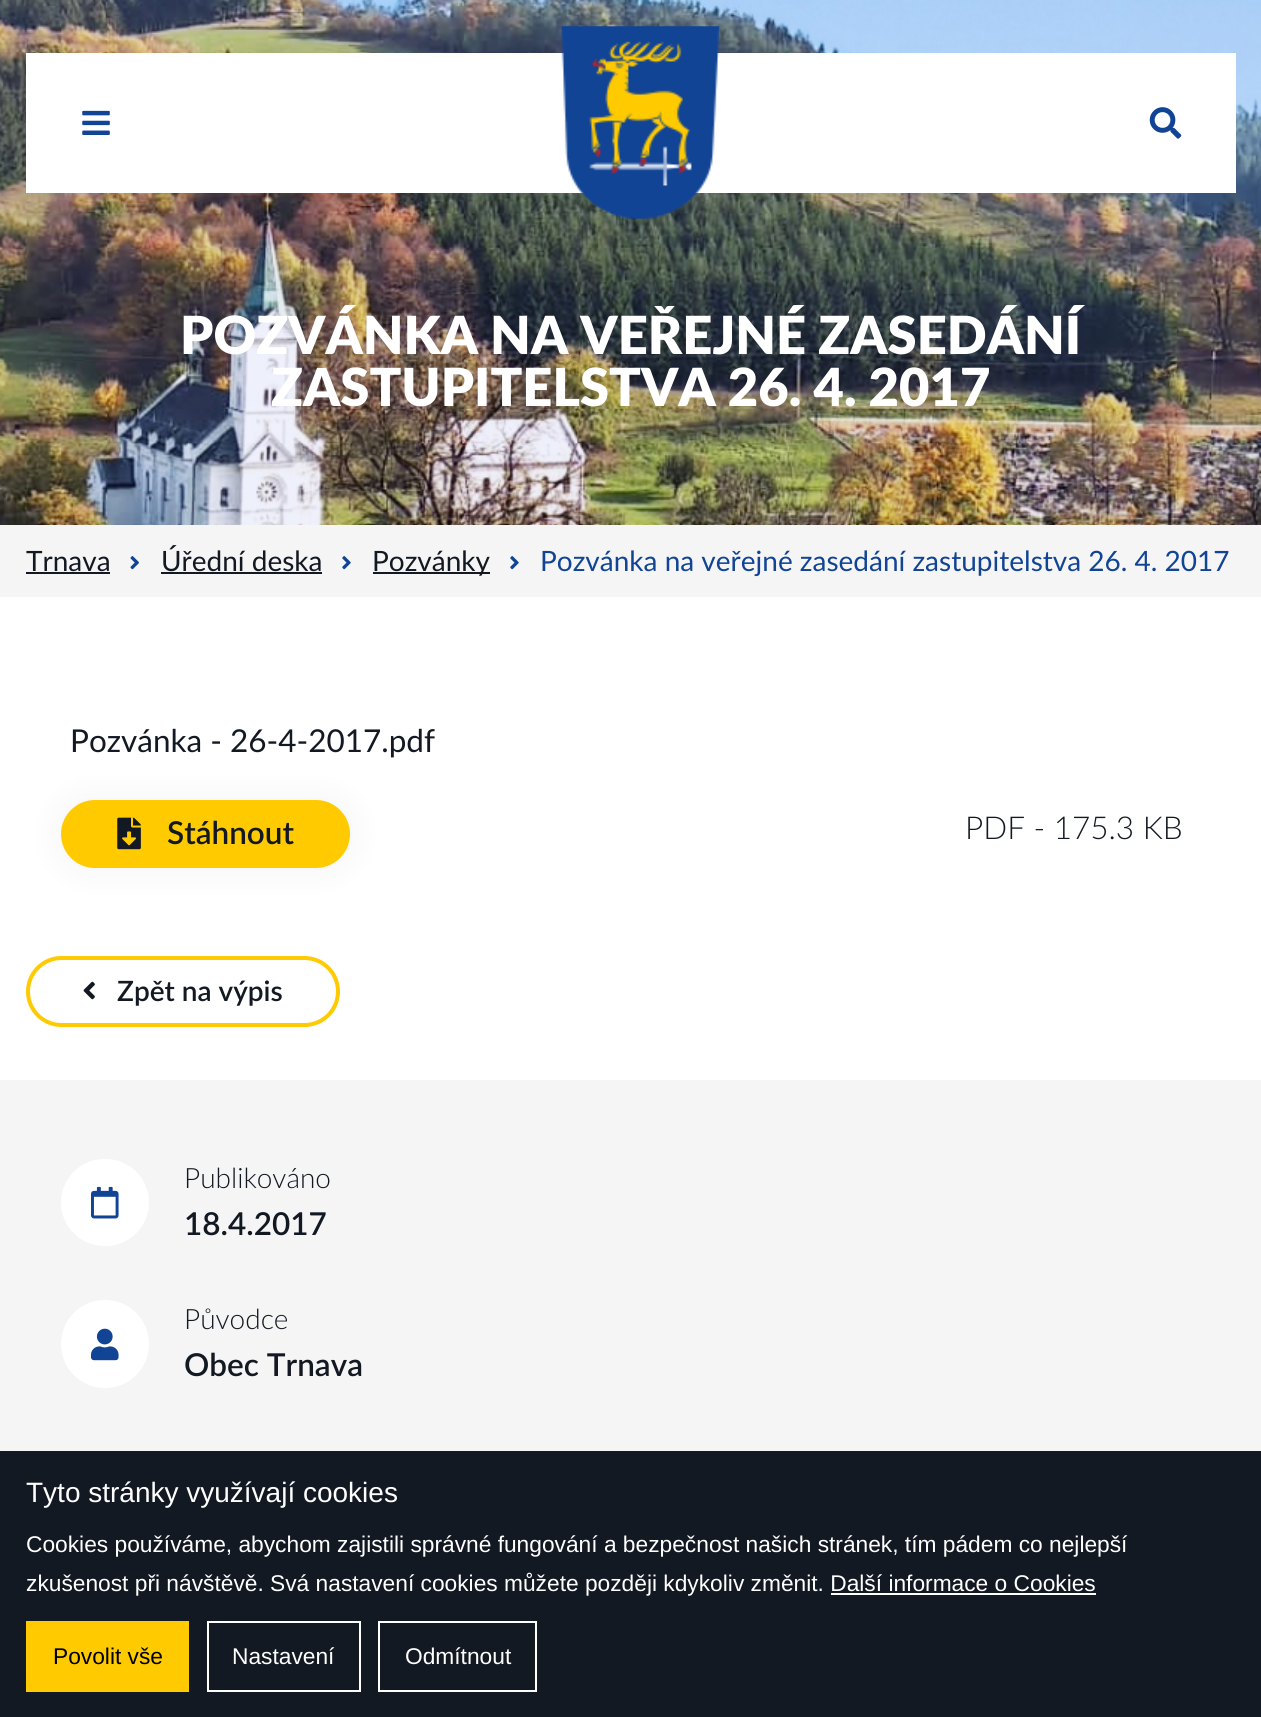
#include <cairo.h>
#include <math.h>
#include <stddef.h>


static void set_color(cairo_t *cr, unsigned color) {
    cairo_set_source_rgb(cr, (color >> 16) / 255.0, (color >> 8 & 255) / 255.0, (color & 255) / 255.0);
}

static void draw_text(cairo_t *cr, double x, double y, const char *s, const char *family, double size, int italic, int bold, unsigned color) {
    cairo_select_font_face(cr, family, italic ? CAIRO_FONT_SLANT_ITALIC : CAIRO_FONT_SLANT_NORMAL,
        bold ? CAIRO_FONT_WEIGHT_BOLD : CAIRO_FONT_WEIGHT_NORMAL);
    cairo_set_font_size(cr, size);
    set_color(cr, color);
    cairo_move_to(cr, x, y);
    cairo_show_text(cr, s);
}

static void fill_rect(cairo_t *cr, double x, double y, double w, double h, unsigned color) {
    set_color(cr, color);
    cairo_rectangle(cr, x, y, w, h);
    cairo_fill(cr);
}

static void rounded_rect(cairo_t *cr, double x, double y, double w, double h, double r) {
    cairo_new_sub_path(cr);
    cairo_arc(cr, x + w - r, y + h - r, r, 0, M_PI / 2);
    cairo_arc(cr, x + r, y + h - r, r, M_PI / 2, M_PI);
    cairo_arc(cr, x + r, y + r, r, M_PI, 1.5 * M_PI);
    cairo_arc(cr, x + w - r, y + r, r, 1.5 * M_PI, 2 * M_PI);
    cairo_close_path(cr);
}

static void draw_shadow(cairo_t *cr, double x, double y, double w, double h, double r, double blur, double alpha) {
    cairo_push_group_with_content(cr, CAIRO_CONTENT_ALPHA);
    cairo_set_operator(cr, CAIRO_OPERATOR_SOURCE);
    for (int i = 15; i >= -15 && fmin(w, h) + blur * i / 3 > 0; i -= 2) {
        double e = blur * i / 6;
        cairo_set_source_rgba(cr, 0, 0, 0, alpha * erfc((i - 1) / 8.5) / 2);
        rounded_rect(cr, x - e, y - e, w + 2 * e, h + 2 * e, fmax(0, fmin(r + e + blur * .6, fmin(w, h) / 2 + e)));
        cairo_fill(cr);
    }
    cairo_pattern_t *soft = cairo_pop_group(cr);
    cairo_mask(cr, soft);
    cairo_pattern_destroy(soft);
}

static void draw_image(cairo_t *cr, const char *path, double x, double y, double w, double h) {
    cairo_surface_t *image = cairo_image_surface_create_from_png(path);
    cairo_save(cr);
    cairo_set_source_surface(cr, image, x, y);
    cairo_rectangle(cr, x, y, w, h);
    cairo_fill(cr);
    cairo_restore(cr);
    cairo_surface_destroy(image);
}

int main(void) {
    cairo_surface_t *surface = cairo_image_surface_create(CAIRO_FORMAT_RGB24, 1261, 1717);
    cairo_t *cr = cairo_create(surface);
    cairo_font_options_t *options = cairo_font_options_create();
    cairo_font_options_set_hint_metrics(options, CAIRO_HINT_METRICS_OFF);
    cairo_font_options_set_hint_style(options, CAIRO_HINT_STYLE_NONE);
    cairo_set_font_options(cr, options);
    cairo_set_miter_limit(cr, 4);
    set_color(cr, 0xFFFFFF);
    cairo_paint(cr);
    draw_image(cr, "assets/img1.png", 0, 0, 1261, 525);
    fill_rect(cr, 26, 53, 1210, 140, 0xFFFFFF);
    draw_image(cr, "assets/img2.png", 561, 26, 159, 193);
    draw_image(cr, "assets/img3.png", 82, 110, 28, 25);
    draw_image(cr, "assets/img4.png", 1149, 107, 33, 32);
    draw_text(cr, 180, 354, "POZVÁNKA NA VEŘEJNÉ ZASEDÁNÍ", "Lato ExtraBold", 52.5, 0, 0, 0xFFFFFF);
    draw_text(cr, 271, 406, "ZASTUPITELSTVA 26. 4. 2017", "Lato ExtraBold", 52.5, 0, 0, 0xFFFFFF);
    fill_rect(cr, 0, 525, 1261, 72, 0xF5F5F5);
    draw_text(cr, 26, 571, "Trnava", "Lato", 28, 0, 0, 0x131922);
    fill_rect(cr, 26, 572, 84, 2, 0x131922);
    draw_image(cr, "assets/img5.png", 130, 556, 9, 14);
    draw_text(cr, 161, 571, "Úřední deska", "Lato", 28, 0, 0, 0x131922);
    fill_rect(cr, 161, 572, 161, 2, 0x131922);
    draw_image(cr, "assets/img6.png", 342, 556, 9, 14);
    fill_rect(cr, 373, 572, 117, 2, 0x131922);
    draw_text(cr, 372, 571, "Pozvánky", "Lato", 28, 0, 0, 0x131922);
    draw_image(cr, "assets/img6.png", 510, 556, 9, 14);
    draw_text(cr, 540, 571, "Pozvánka na veřejné zasedání zastupitelstva 26. 4. 2017", "Lato", 28, 0, 0, 0x114495);
    draw_text(cr, 70, 752, "Pozvánka - 26-4-2017.pdf", "Lato", 31.5, 0, 0, 0x131922);
    set_color(cr, 0x000000);
    draw_shadow(cr, 61, 800, 289, 68, 34, 17.5, 0.05);
    set_color(cr, 0xFFCA00);
    rounded_rect(cr, 63, 802, 285, 64, 32);
    cairo_fill_preserve(cr);
    cairo_set_line_width(cr, 4);
    cairo_stroke(cr);
    draw_image(cr, "assets/img7.png", 117, 817, 24, 33);
    draw_text(cr, 167, 844, "Stáhnout", "Lato SemiBold", 31.5, 0, 0, 0x131922);
    draw_text(cr, 965, 839, "PDF - 175.3 KB", "Lato Light", 31.5, 0, 0, 0x131922);
    rounded_rect(cr, 28, 958, 310, 67, 33.5);
    set_color(cr, 0xFFCA00);
    cairo_stroke(cr);
    draw_image(cr, "assets/img8.png", 83, 981, 12, 19);
    draw_text(cr, 117, 1001, "Zpět na výpis", "Lato SemiBold", 28, 0, 0, 0x131922);
    fill_rect(cr, 0, 1080, 1261, 371, 0xF5F5F5);
    set_color(cr, 0xFFFFFF);
    rounded_rect(cr, 61, 1159, 88, 87, 43.5);
    cairo_fill(cr);
    draw_image(cr, "assets/img9.png", 91, 1186, 28, 33);
    draw_text(cr, 184, 1188, "Publikováno", "Lato Light", 28, 0, 0, 0x131922);
    draw_text(cr, 184, 1235, "18.4.2017", "Lato SemiBold", 31.5, 0, 0, 0x131922);
    set_color(cr, 0xFFFFFF);
    cairo_new_path(cr);
    cairo_arc(cr, 105, 1344, 44, 0, 2 * M_PI);
    cairo_fill(cr);
    draw_image(cr, "assets/img10.png", 91, 1328, 28, 33);
    draw_text(cr, 184, 1329, "Původce", "Lato Light", 28, 0, 0, 0x131922);
    draw_text(cr, 184, 1376, "Obec Trnava", "Lato SemiBold", 31.5, 0, 0, 0x131922);
    fill_rect(cr, 0, 1451, 1261, 266, 0x131922);
    draw_text(cr, 26, 1502, "Tyto stránky využívají cookies", "Liberation Sans", 28, 0, 0, 0xFFFFFF);
    draw_text(cr, 26, 1552, "Cookies používáme, abychom zajistili správné fungování a bezpečnost našich stránek, tím pádem co nejlepší", "Liberation Sans", 22.75, 0, 0, 0xFFFFFF);
    draw_text(cr, 26, 1591, "zkušenost při návštěvě. Svá nastavení cookies můžete později kdykoliv změnit. Další informace o Cookies", "Liberation Sans", 22.75, 0, 0, 0xFFFFFF);
    fill_rect(cr, 831, 1593, 265, 2, 0xFFFFFF);
    fill_rect(cr, 26, 1621, 163, 71, 0xFFCA00);
    draw_text(cr, 53, 1664, "Povolit vše", "Liberation Sans", 22.75, 0, 0, 0x000000);
    cairo_rectangle(cr, 208, 1622, 152, 69);
    set_color(cr, 0xFFFFFF);
    cairo_set_line_width(cr, 2);
    cairo_stroke(cr);
    draw_text(cr, 232, 1664, "Nastavení", "Liberation Sans", 22.75, 0, 0, 0xFFFFFF);
    cairo_rectangle(cr, 379, 1622, 157, 69);
    cairo_stroke(cr);
    draw_text(cr, 405, 1664, "Odmítnout", "Liberation Sans", 22.75, 0, 0, 0xFFFFFF);
    cairo_surface_write_to_png(surface, "output.png");
    cairo_font_options_destroy(options);
    cairo_destroy(cr);
    cairo_surface_destroy(surface);
    return 0;
}
